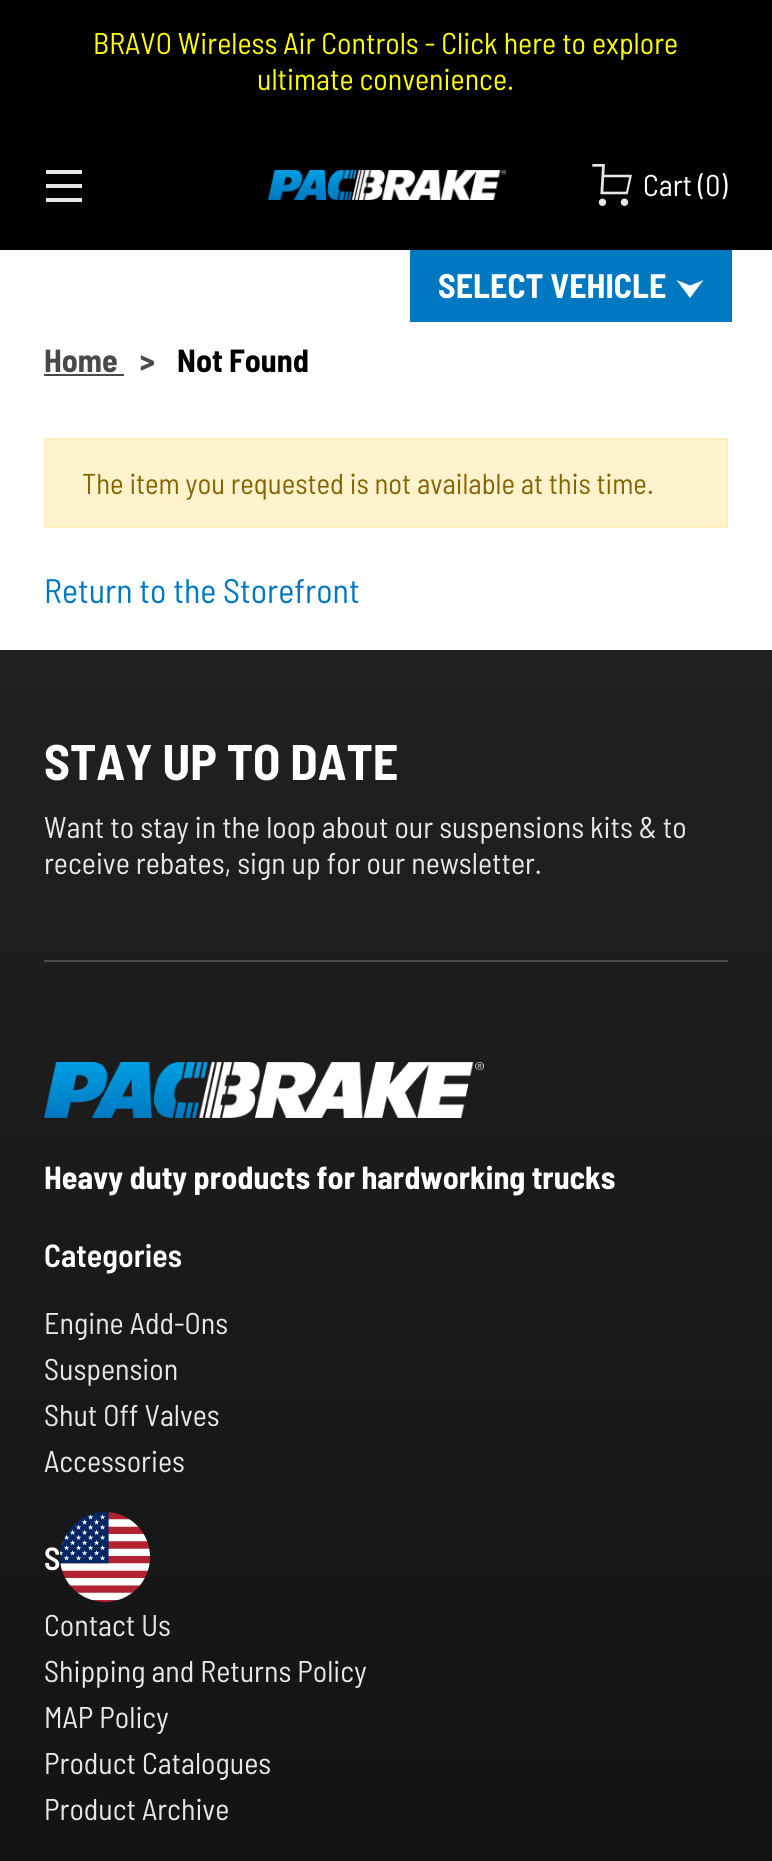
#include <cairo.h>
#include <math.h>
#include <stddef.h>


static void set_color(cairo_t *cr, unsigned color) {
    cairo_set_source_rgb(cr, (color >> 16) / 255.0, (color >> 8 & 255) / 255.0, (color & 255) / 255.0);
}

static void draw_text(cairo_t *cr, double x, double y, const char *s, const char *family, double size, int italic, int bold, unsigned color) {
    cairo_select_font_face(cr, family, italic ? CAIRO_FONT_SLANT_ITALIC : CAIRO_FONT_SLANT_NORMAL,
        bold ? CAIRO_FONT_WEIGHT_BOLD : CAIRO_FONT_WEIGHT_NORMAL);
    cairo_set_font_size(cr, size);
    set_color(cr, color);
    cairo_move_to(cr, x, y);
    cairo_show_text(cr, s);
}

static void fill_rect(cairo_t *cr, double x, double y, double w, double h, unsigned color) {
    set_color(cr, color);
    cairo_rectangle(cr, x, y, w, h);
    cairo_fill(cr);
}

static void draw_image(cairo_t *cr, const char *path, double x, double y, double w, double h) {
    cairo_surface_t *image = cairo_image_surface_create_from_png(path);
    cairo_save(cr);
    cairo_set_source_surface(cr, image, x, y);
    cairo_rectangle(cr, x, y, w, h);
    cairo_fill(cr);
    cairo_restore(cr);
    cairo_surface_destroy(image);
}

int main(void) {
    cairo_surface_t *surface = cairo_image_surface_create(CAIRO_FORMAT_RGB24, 772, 1861);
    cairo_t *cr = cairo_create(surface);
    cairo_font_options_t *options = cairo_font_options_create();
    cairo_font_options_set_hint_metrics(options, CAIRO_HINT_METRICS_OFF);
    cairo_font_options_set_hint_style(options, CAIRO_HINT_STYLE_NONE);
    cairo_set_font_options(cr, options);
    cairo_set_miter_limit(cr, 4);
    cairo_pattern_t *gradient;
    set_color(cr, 0xFFFFFF);
    cairo_paint(cr);
    fill_rect(cr, 0, 0, 772, 250, 0x000000);
    draw_text(cr, 93, 54, "BRAVO Wireless Air Controls - Click here to explore", "Barlow Semi Condensed", 30, 0, 0, 0xFFFF00);
    draw_text(cr, 257, 90, "ultimate convenience.", "Barlow Semi Condensed", 30, 0, 0, 0xFFFF00);
    fill_rect(cr, 46, 170, 36, 4, 0xE6E6E6);
    fill_rect(cr, 46, 184, 36, 4, 0xE6E6E6);
    fill_rect(cr, 46, 198, 36, 4, 0xE6E6E6);
    draw_image(cr, "assets/img1.png", 268, 170, 238, 30);
    draw_image(cr, "assets/img2.png", 592, 164, 40, 42);
    draw_text(cr, 643, 196, "Cart (0)", "Barlow Semi Condensed", 30, 0, 0, 0xFFFFFF);
    fill_rect(cr, 410, 250, 322, 72, 0x0078C1);
    draw_text(cr, 438, 298, "SELECT VEHICLE", "Barlow Semi Condensed", 34, 0, 1, 0xFFFFFF);
    cairo_new_path(cr);
    cairo_move_to(cr, 703.5, 280);
    cairo_line_to(cr, 690, 285.5);
    cairo_line_to(cr, 676.5, 280);
    cairo_line_to(cr, 690, 298);
    cairo_close_path(cr);
    cairo_fill(cr);
    draw_text(cr, 44, 372, "Home", "Barlow Semi Condensed", 32, 0, 1, 0x47494B);
    fill_rect(cr, 44, 374, 80, 2, 0x47494B);
    draw_text(cr, 140, 372, ">", "Barlow Semi Condensed", 32, 0, 1, 0x47494B);
    draw_text(cr, 177, 372, "Not Found", "Barlow Semi Condensed", 32, 0, 1, 0x000000);
    set_color(cr, 0xFFF3CD);
    cairo_rectangle(cr, 45, 439, 682, 88);
    cairo_fill_preserve(cr);
    set_color(cr, 0xFFEEBA);
    cairo_stroke(cr);
    draw_text(cr, 82, 494, "The item you requested is not available at this time.", "Barlow Semi Condensed", 28.75, 0, 0, 0x856404);
    draw_text(cr, 44, 603, "Return to the Storefront", "Barlow Semi Condensed", 34, 0, 0, 0x0078C1);
    gradient = cairo_pattern_create_linear(386, 650, 386, 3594);
    cairo_pattern_add_color_stop_rgba(gradient, 0, 0.129, 0.129, 0.129, 1);
    cairo_pattern_add_color_stop_rgba(gradient, 1, 0, 0, 0, 1);
    cairo_set_source(cr, gradient);
    cairo_pattern_destroy(gradient);
    cairo_rectangle(cr, 0, 650, 772, 1211);
    cairo_fill(cr);
    draw_text(cr, 44, 780, "STAY UP TO DATE", "Barlow Semi Condensed", 50, 0, 1, 0xFFFFFF);
    draw_text(cr, 44, 838, "Want to stay in the loop about our suspensions kits & to", "Barlow Semi Condensed", 30, 0, 0, 0xE6E7E8);
    draw_text(cr, 44, 874, "receive rebates, sign up for our newsletter.", "Barlow Semi Condensed", 30, 0, 0, 0xE6E7E8);
    fill_rect(cr, 44, 960, 684, 2, 0x4B4B4B);
    draw_image(cr, "assets/img3.png", 44, 1062, 440, 56);
    draw_text(cr, 44, 1189, "Heavy duty products for hardworking trucks", "Barlow Semi Condensed", 32, 0, 1, 0xFFFFFF);
    draw_text(cr, 44, 1267, "Categories", "Barlow Semi Condensed SemiBold", 32, 0, 0, 0xFFFFFF);
    draw_text(cr, 44, 1334, "Engine Add-Ons", "Barlow Semi Condensed", 30, 0, 0, 0xE6E7E8);
    draw_text(cr, 44, 1380, "Suspension", "Barlow Semi Condensed", 30, 0, 0, 0xE6E7E8);
    draw_text(cr, 44, 1426, "Shut Off Valves", "Barlow Semi Condensed", 30, 0, 0, 0xE6E7E8);
    draw_text(cr, 44, 1472, "Accessories", "Barlow Semi Condensed", 30, 0, 0, 0xE6E7E8);
    draw_text(cr, 44, 1570, "S", "Barlow Semi Condensed SemiBold", 32, 0, 0, 0xFFFFFF);
    draw_text(cr, 44, 1636, "Contact Us", "Barlow Semi Condensed", 30, 0, 0, 0xE6E7E8);
    draw_text(cr, 44, 1682, "Shipping and Returns Policy", "Barlow Semi Condensed", 30, 0, 0, 0xE6E7E8);
    draw_text(cr, 44, 1728, "MAP Policy", "Barlow Semi Condensed", 30, 0, 0, 0xE6E7E8);
    draw_text(cr, 44, 1774, "Product Catalogues", "Barlow Semi Condensed", 30, 0, 0, 0xE6E7E8);
    draw_text(cr, 44, 1820, "Product Archive", "Barlow Semi Condensed", 30, 0, 0, 0xE6E7E8);
    draw_image(cr, "assets/img4.png", 60, 1512, 90, 90);
    cairo_surface_write_to_png(surface, "output.png");
    cairo_font_options_destroy(options);
    cairo_destroy(cr);
    cairo_surface_destroy(surface);
    return 0;
}
